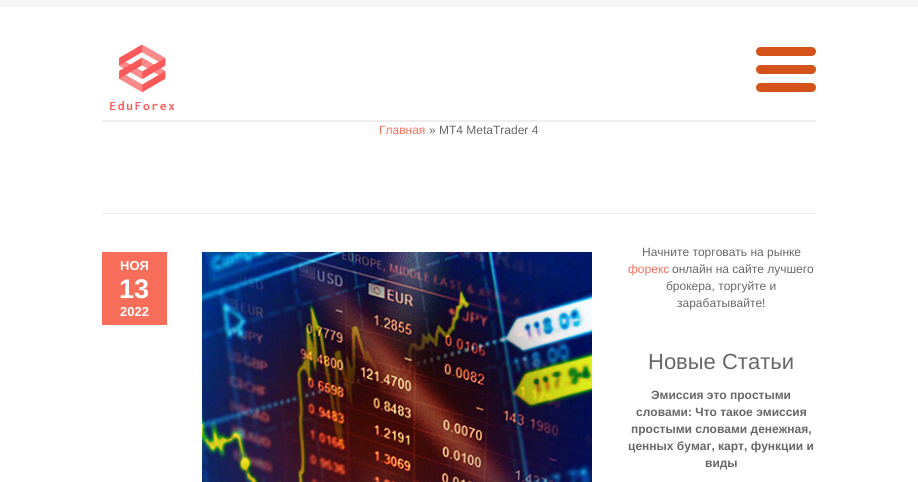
#include <cairo.h>
#include <math.h>
#include <stddef.h>


static void set_color(cairo_t *cr, unsigned color) {
    cairo_set_source_rgb(cr, (color >> 16) / 255.0, (color >> 8 & 255) / 255.0, (color & 255) / 255.0);
}

static void draw_text(cairo_t *cr, double x, double y, const char *s, const char *family, double size, int italic, int bold, unsigned color) {
    cairo_select_font_face(cr, family, italic ? CAIRO_FONT_SLANT_ITALIC : CAIRO_FONT_SLANT_NORMAL,
        bold ? CAIRO_FONT_WEIGHT_BOLD : CAIRO_FONT_WEIGHT_NORMAL);
    cairo_set_font_size(cr, size);
    set_color(cr, color);
    cairo_move_to(cr, x, y);
    cairo_show_text(cr, s);
}

static void fill_rect(cairo_t *cr, double x, double y, double w, double h, unsigned color) {
    set_color(cr, color);
    cairo_rectangle(cr, x, y, w, h);
    cairo_fill(cr);
}

static void rounded_rect(cairo_t *cr, double x, double y, double w, double h, double r) {
    cairo_new_sub_path(cr);
    cairo_arc(cr, x + w - r, y + h - r, r, 0, M_PI / 2);
    cairo_arc(cr, x + r, y + h - r, r, M_PI / 2, M_PI);
    cairo_arc(cr, x + r, y + r, r, M_PI, 1.5 * M_PI);
    cairo_arc(cr, x + w - r, y + r, r, 1.5 * M_PI, 2 * M_PI);
    cairo_close_path(cr);
}

static void draw_image(cairo_t *cr, const char *path, double x, double y, double w, double h) {
    cairo_surface_t *image = cairo_image_surface_create_from_png(path);
    cairo_save(cr);
    cairo_set_source_surface(cr, image, x, y);
    cairo_rectangle(cr, x, y, w, h);
    cairo_fill(cr);
    cairo_restore(cr);
    cairo_surface_destroy(image);
}

int main(void) {
    cairo_surface_t *surface = cairo_image_surface_create(CAIRO_FORMAT_RGB24, 918, 482);
    cairo_t *cr = cairo_create(surface);
    cairo_font_options_t *options = cairo_font_options_create();
    cairo_font_options_set_hint_metrics(options, CAIRO_HINT_METRICS_OFF);
    cairo_font_options_set_hint_style(options, CAIRO_HINT_STYLE_NONE);
    cairo_set_font_options(cr, options);
    cairo_set_miter_limit(cr, 4);
    set_color(cr, 0xFFFFFF);
    cairo_paint(cr);
    fill_rect(cr, 0, 0, 918, 7, 0xF5F5F5);
    draw_image(cr, "assets/img1.png", 110, 44, 65, 67);
    set_color(cr, 0xD3531A);
    rounded_rect(cr, 756, 47, 60, 9, 4.5);
    cairo_fill(cr);
    rounded_rect(cr, 756, 65, 60, 9, 4.5);
    cairo_fill(cr);
    rounded_rect(cr, 756, 83, 60, 9, 4.5);
    cairo_fill(cr);
    fill_rect(cr, 102, 120, 714, 2, 0xEEEEEE);
    draw_text(cr, 379, 134, "Главная", "Liberation Sans", 12, 0, 0, 0xF96E5B);
    draw_text(cr, 429, 134, "» MT4 MetaTrader 4", "Liberation Sans", 12, 0, 0, 0x676767);
    fill_rect(cr, 102, 213, 714, 1, 0xEEEEEE);
    fill_rect(cr, 102, 252, 65, 73, 0xF96E5B);
    draw_text(cr, 120, 270, "НОЯ", "Liberation Sans", 13, 0, 1, 0xFFFFFF);
    draw_text(cr, 119, 298, "13", "Liberation Sans", 27, 0, 1, 0xFFFFFF);
    draw_text(cr, 120, 316, "2022", "Liberation Sans", 13, 0, 1, 0xFFFFFF);
    draw_image(cr, "assets/img2.png", 202, 252, 390, 230);
    draw_text(cr, 642, 256, "Начните торговать на рынке", "Liberation Sans", 12, 0, 0, 0x676767);
    draw_text(cr, 628, 273, "форекс", "Liberation Sans", 12, 0, 0, 0xF96E5B);
    draw_text(cr, 672, 273, "онлайн на сайте лучшего", "Liberation Sans", 12, 0, 0, 0x676767);
    draw_text(cr, 666, 290, "брокера, торгуйте и", "Liberation Sans", 12, 0, 0, 0x676767);
    draw_text(cr, 677, 307, "зарабатывайте!", "Liberation Sans", 12, 0, 0, 0x676767);
    draw_text(cr, 648, 369, "Новые Статьи", "Liberation Sans", 22, 0, 0, 0x676767);
    draw_text(cr, 651, 399, "Эмиссия это простыми", "Liberation Sans", 12, 0, 1, 0x676767);
    draw_text(cr, 636, 416, "словами: Что такое эмиссия", "Liberation Sans", 12, 0, 1, 0x676767);
    draw_text(cr, 631, 433, "простыми словами денежная,", "Liberation Sans", 12, 0, 1, 0x676767);
    draw_text(cr, 628, 450, "ценных бумаг, карт, функции и", "Liberation Sans", 12, 0, 1, 0x676767);
    draw_text(cr, 705, 467, "виды", "Liberation Sans", 12, 0, 1, 0x676767);
    cairo_surface_write_to_png(surface, "output.png");
    cairo_font_options_destroy(options);
    cairo_destroy(cr);
    cairo_surface_destroy(surface);
    return 0;
}
